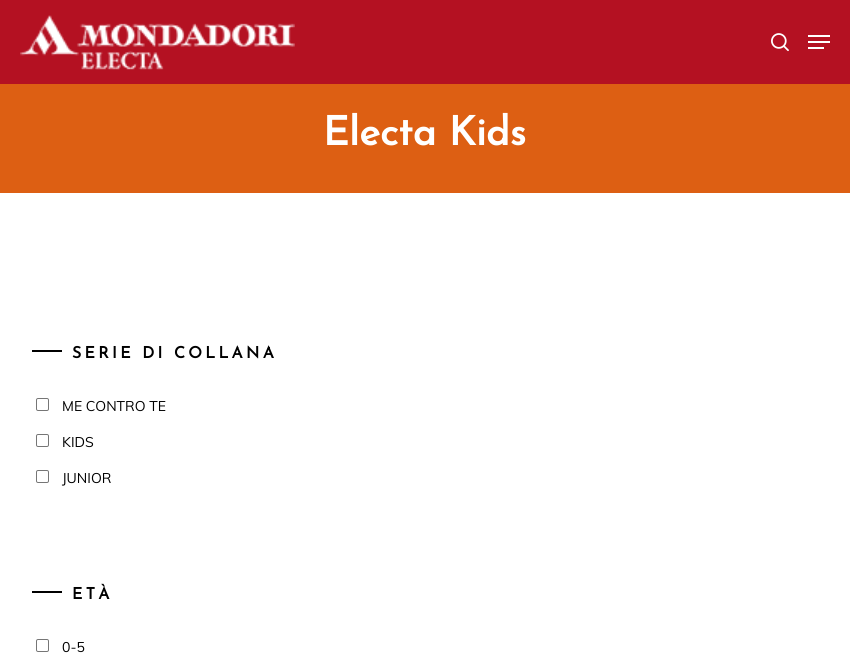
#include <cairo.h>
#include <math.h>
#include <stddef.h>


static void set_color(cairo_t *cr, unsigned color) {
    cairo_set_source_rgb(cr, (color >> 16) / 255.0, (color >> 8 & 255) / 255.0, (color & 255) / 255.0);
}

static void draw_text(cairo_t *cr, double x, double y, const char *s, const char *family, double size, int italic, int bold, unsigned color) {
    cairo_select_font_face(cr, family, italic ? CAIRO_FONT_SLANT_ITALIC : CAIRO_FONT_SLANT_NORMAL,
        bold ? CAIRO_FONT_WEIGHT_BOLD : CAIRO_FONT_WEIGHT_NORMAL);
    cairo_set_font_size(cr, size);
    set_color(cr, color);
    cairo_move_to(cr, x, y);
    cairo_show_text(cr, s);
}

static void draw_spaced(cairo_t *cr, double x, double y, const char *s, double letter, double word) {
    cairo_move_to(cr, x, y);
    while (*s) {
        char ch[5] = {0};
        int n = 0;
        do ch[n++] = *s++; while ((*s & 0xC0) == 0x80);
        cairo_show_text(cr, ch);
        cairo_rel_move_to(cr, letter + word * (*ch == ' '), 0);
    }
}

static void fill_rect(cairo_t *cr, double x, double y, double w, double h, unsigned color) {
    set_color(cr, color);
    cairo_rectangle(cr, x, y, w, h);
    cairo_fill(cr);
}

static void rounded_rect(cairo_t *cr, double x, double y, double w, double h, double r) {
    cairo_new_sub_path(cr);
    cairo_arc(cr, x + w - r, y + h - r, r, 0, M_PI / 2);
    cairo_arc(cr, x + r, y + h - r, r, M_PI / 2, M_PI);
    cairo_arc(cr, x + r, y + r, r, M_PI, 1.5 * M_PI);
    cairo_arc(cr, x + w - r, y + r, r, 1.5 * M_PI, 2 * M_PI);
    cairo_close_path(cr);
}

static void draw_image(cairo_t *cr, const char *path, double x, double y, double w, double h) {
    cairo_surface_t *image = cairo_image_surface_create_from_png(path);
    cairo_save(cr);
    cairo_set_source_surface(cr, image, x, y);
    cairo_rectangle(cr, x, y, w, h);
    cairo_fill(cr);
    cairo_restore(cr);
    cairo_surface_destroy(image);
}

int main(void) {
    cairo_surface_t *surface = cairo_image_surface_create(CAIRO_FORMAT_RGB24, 850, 670);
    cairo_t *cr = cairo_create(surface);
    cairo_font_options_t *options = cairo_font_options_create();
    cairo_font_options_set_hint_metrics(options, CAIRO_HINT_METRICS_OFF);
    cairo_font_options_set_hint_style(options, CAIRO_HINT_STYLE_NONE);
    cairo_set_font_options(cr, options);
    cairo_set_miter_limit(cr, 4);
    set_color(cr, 0xFFFFFF);
    cairo_paint(cr);
    fill_rect(cr, 0, 0, 850, 84, 0xB41122);
    draw_image(cr, "assets/img1.png", 20, 15, 275, 55);
    draw_image(cr, "assets/img2.png", 771, 33, 18, 19);
    fill_rect(cr, 808, 35, 22, 2, 0xFFFFFF);
    fill_rect(cr, 808, 47, 16, 2, 0xFFFFFF);
    fill_rect(cr, 808, 41, 22, 2, 0xFFFFFF);
    fill_rect(cr, 0, 84, 850, 109, 0xDD5F13);
    draw_text(cr, 323, 145, "Electa Kids", "Josefin Sans", 40, 0, 1, 0xFFFFFF);
    fill_rect(cr, 32, 350, 30, 2, 0x000000);
    cairo_set_font_size(cr, 16);
    draw_spaced(cr, 72, 358, "SERIE DI COLLANA", 3.25, 0);
    rounded_rect(cr, 36.5, 398.5, 12, 12, 1.5);
    set_color(cr, 0x767676);
    cairo_set_line_width(cr, 1);
    cairo_stroke(cr);
    draw_text(cr, 62, 411, "ME CONTRO TE", "Muli", 14, 0, 0, 0x000000);
    rounded_rect(cr, 36.5, 434.5, 12, 12, 1.5);
    set_color(cr, 0x767676);
    cairo_stroke(cr);
    draw_text(cr, 62, 447, "KIDS", "Muli", 14, 0, 0, 0x000000);
    rounded_rect(cr, 36.5, 470.5, 12, 12, 1.5);
    set_color(cr, 0x767676);
    cairo_stroke(cr);
    draw_text(cr, 62, 483, "JUNIOR", "Muli", 14, 0, 0, 0x000000);
    fill_rect(cr, 32, 591, 30, 2, 0x000000);
    cairo_select_font_face(cr, "Josefin Sans", CAIRO_FONT_SLANT_NORMAL, CAIRO_FONT_WEIGHT_BOLD);
    cairo_set_font_size(cr, 16);
    draw_spaced(cr, 72, 599, "ETÀ", 3.25, 0);
    rounded_rect(cr, 36.5, 639.5, 12, 12, 1.5);
    set_color(cr, 0x767676);
    cairo_stroke(cr);
    draw_text(cr, 62, 652, "0-5", "Muli", 14, 0, 0, 0x000000);
    cairo_surface_write_to_png(surface, "output.png");
    cairo_font_options_destroy(options);
    cairo_destroy(cr);
    cairo_surface_destroy(surface);
    return 0;
}
